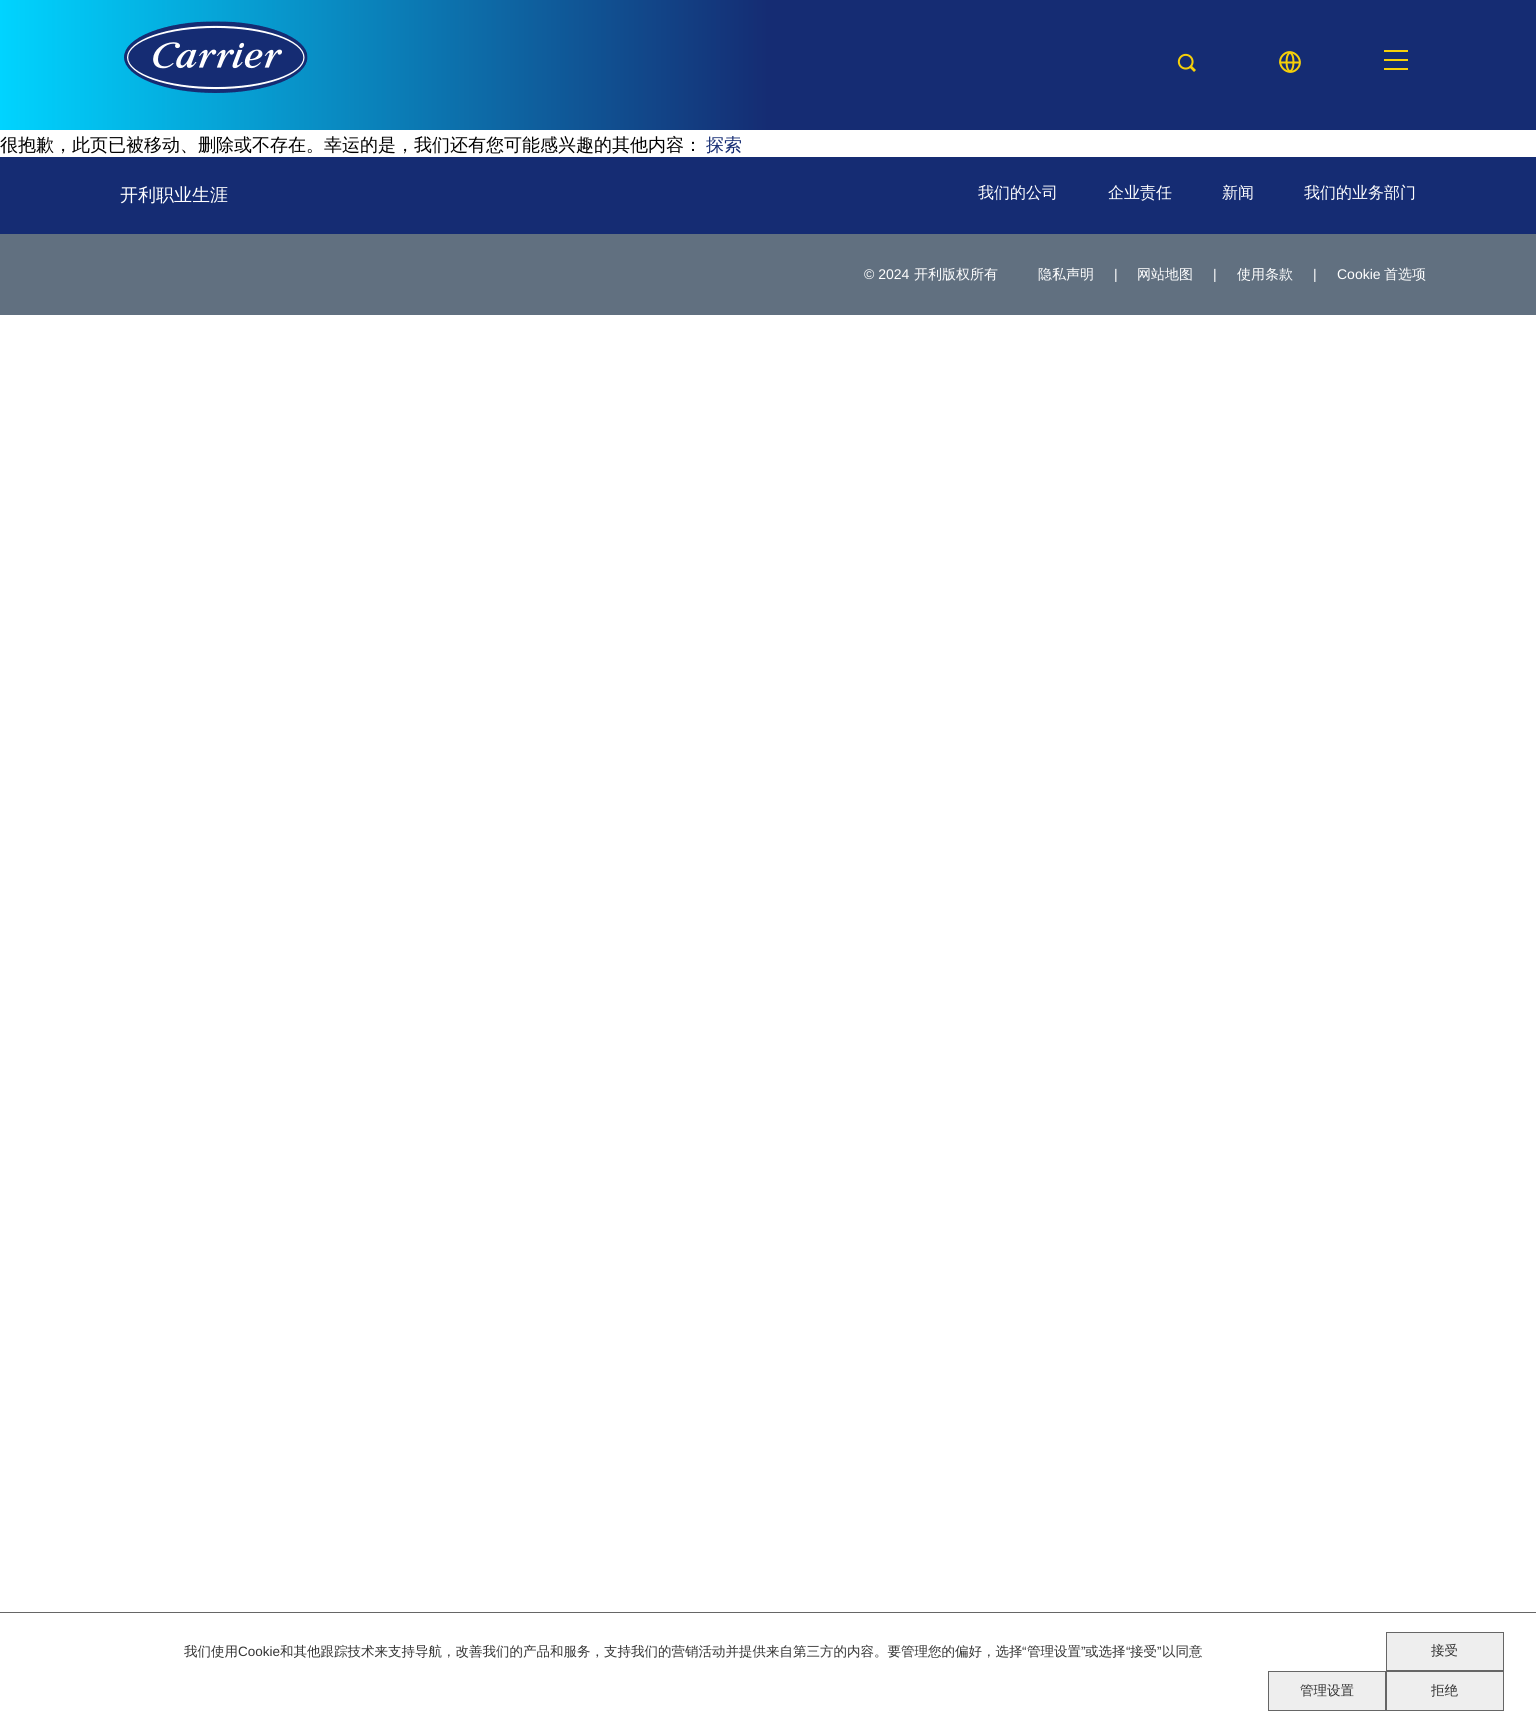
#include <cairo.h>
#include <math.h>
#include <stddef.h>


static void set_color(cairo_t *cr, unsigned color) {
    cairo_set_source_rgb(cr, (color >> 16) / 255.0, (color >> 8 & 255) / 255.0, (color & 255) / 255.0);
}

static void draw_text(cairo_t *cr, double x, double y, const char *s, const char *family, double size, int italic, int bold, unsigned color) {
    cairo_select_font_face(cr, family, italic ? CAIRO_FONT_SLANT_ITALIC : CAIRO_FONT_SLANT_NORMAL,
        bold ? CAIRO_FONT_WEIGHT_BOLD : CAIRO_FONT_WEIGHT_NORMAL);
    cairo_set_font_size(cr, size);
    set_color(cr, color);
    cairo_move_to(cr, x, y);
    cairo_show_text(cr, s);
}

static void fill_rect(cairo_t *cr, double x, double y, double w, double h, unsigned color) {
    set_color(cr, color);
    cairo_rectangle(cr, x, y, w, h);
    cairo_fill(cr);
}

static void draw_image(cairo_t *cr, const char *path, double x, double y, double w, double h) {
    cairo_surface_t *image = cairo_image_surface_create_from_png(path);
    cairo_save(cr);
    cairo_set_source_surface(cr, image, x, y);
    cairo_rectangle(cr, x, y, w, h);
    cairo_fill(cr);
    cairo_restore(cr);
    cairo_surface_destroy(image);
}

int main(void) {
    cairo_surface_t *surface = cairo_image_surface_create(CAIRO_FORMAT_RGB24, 1536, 1730);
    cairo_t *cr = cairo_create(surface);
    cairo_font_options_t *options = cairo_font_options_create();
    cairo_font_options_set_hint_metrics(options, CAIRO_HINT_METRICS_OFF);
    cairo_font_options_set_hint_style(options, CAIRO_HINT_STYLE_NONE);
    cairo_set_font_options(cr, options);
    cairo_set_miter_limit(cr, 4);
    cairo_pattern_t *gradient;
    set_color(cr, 0xFFFFFF);
    cairo_paint(cr);
    gradient = cairo_pattern_create_linear(0, 65, 1536, 65);
    cairo_pattern_add_color_stop_rgba(gradient, 0, 0, 0.831, 1, 1);
    cairo_pattern_add_color_stop_rgba(gradient, 0.5, 0.082, 0.173, 0.451, 1);
    cairo_set_source(cr, gradient);
    cairo_pattern_destroy(gradient);
    cairo_rectangle(cr, 0, 0, 1536, 130);
    cairo_fill(cr);
    draw_image(cr, "assets/img1.png", 124, 21, 184, 72);
    draw_image(cr, "assets/img2.png", 1177, 53, 19, 19);
    cairo_new_path(cr);
    cairo_move_to(cr, 1283, 55);
    cairo_curve_to(cr, 1292, 46, 1306, 60, 1297, 69);
    cairo_curve_to(cr, 1288, 78, 1274, 64, 1283, 55);
    cairo_close_path(cr);
    set_color(cr, 0xF6D009);
    cairo_stroke(cr);
    cairo_new_path(cr);
    cairo_move_to(cr, 1280.5, 62.5);
    cairo_line_to(cr, 1298.5, 62.5);
    cairo_set_line_cap(cr, CAIRO_LINE_CAP_SQUARE);
    cairo_stroke(cr);
    cairo_new_path(cr);
    cairo_move_to(cr, 1290, 53);
    cairo_curve_to(cr, 1292, 53, 1293.5, 57, 1293.5, 62);
    cairo_curve_to(cr, 1293.5, 67, 1292, 71, 1290, 71);
    cairo_curve_to(cr, 1288, 71, 1286.5, 67, 1286.5, 62);
    cairo_curve_to(cr, 1286.5, 57, 1288, 53, 1290, 53);
    cairo_close_path(cr);
    cairo_set_line_cap(cr, CAIRO_LINE_CAP_BUTT);
    cairo_stroke(cr);
    draw_image(cr, "assets/img3.png", 1384, 50, 24, 20);
    draw_text(cr, 0, 151, "很抱歉，此页已被移动、删除或不存在。幸运的是，我们还有您可能感兴趣的其他内容：", "WenQuanYi Zen Hei Medium", 18, 0, 0, 0x000000);
    draw_text(cr, 706, 151, "探索", "WenQuanYi Zen Hei Medium", 18, 0, 0, 0x152C73);
    fill_rect(cr, 0, 157, 1536, 77, 0x152C73);
    draw_text(cr, 120, 201, "开利职业生涯", "WenQuanYi Zen Hei Medium", 18, 0, 0, 0xFFFFFF);
    draw_text(cr, 978, 198, "我们的公司", "WenQuanYi Zen Hei Medium", 16, 0, 0, 0xFFFFFF);
    draw_text(cr, 1108, 198, "企业责任", "WenQuanYi Zen Hei Medium", 16, 0, 0, 0xFFFFFF);
    draw_text(cr, 1222, 198, "新闻", "WenQuanYi Zen Hei Medium", 16, 0, 0, 0xFFFFFF);
    draw_text(cr, 1304, 198, "我们的业务部门", "WenQuanYi Zen Hei Medium", 16, 0, 0, 0xFFFFFF);
    fill_rect(cr, 0, 234, 1536, 81, 0x617080);
    draw_text(cr, 864, 279, "© 2024", "Liberation Sans", 14, 0, 0, 0xFFFFFF);
    draw_text(cr, 914, 279, "开利版权所有", "WenQuanYi Zen Hei Medium", 14, 0, 0, 0xFFFFFF);
    draw_text(cr, 1038, 279, "隐私声明", "WenQuanYi Zen Hei Medium", 14, 0, 0, 0xFFFFFF);
    draw_text(cr, 1114, 279, "|", "Liberation Sans", 14, 0, 0, 0xFFFFFF);
    draw_text(cr, 1137, 279, "网站地图", "WenQuanYi Zen Hei Medium", 14, 0, 0, 0xFFFFFF);
    draw_text(cr, 1213, 279, "|", "Liberation Sans", 14, 0, 0, 0xFFFFFF);
    draw_text(cr, 1237, 279, "使用条款", "WenQuanYi Zen Hei Medium", 14, 0, 0, 0xFFFFFF);
    draw_text(cr, 1313, 279, "|", "Liberation Sans", 14, 0, 0, 0xFFFFFF);
    draw_text(cr, 1337, 279, "Cookie", "Liberation Sans", 14, 0, 0, 0xFFFFFF);
    draw_text(cr, 1384, 279, "首选项", "WenQuanYi Zen Hei Medium", 14, 0, 0, 0xFFFFFF);
    fill_rect(cr, 0, 1612, 1536, 1, 0x666666);
    draw_text(cr, 184, 1656, "我们使用", "WenQuanYi Zen Hei Medium", 13.5, 0, 0, 0x333333);
    draw_text(cr, 238, 1656, "Cookie", "Liberation Sans", 13.5, 0, 0, 0x333333);
    draw_text(cr, 280, 1656, "和其他跟踪技术来支持导航，改善我们的产品和服务，支持我们的营销活动并提供来自第三方的内容。要管理您的偏好，选择", "WenQuanYi Zen Hei Medium", 13.5, 0, 0, 0x333333);
    draw_text(cr, 1022, 1656, "“", "Liberation Sans", 13.5, 0, 0, 0x333333);
    draw_text(cr, 1027, 1656, "管理设置", "WenQuanYi Zen Hei Medium", 13.5, 0, 0, 0x333333);
    draw_text(cr, 1081, 1656, "”", "Liberation Sans", 13.5, 0, 0, 0x333333);
    draw_text(cr, 1085, 1656, "或选择", "WenQuanYi Zen Hei Medium", 13.5, 0, 0, 0x333333);
    draw_text(cr, 1126, 1656, "“", "Liberation Sans", 13.5, 0, 0, 0x333333);
    draw_text(cr, 1130, 1656, "接受", "WenQuanYi Zen Hei Medium", 13.5, 0, 0, 0x333333);
    draw_text(cr, 1157, 1656, "”", "Liberation Sans", 13.5, 0, 0, 0x333333);
    draw_text(cr, 1162, 1656, "以同意", "WenQuanYi Zen Hei Medium", 13.5, 0, 0, 0x333333);
    set_color(cr, 0xEEEEEE);
    cairo_rectangle(cr, 1386.5, 1632.5, 117, 38);
    cairo_fill_preserve(cr);
    set_color(cr, 0x666666);
    cairo_set_line_width(cr, 1);
    cairo_stroke(cr);
    draw_text(cr, 1431, 1655, "接受", "WenQuanYi Zen Hei Medium", 13.5, 0, 0, 0x333333);
    set_color(cr, 0xEEEEEE);
    cairo_rectangle(cr, 1268.5, 1671.5, 117, 39);
    cairo_fill_preserve(cr);
    set_color(cr, 0x666666);
    cairo_stroke(cr);
    draw_text(cr, 1300, 1695, "管理设置", "WenQuanYi Zen Hei Medium", 13.5, 0, 0, 0x333333);
    set_color(cr, 0xEEEEEE);
    cairo_rectangle(cr, 1386.5, 1671.5, 117, 39);
    cairo_fill_preserve(cr);
    set_color(cr, 0x666666);
    cairo_stroke(cr);
    draw_text(cr, 1431, 1695, "拒绝", "WenQuanYi Zen Hei Medium", 13.5, 0, 0, 0x333333);
    cairo_surface_write_to_png(surface, "output.png");
    cairo_font_options_destroy(options);
    cairo_destroy(cr);
    cairo_surface_destroy(surface);
    return 0;
}
